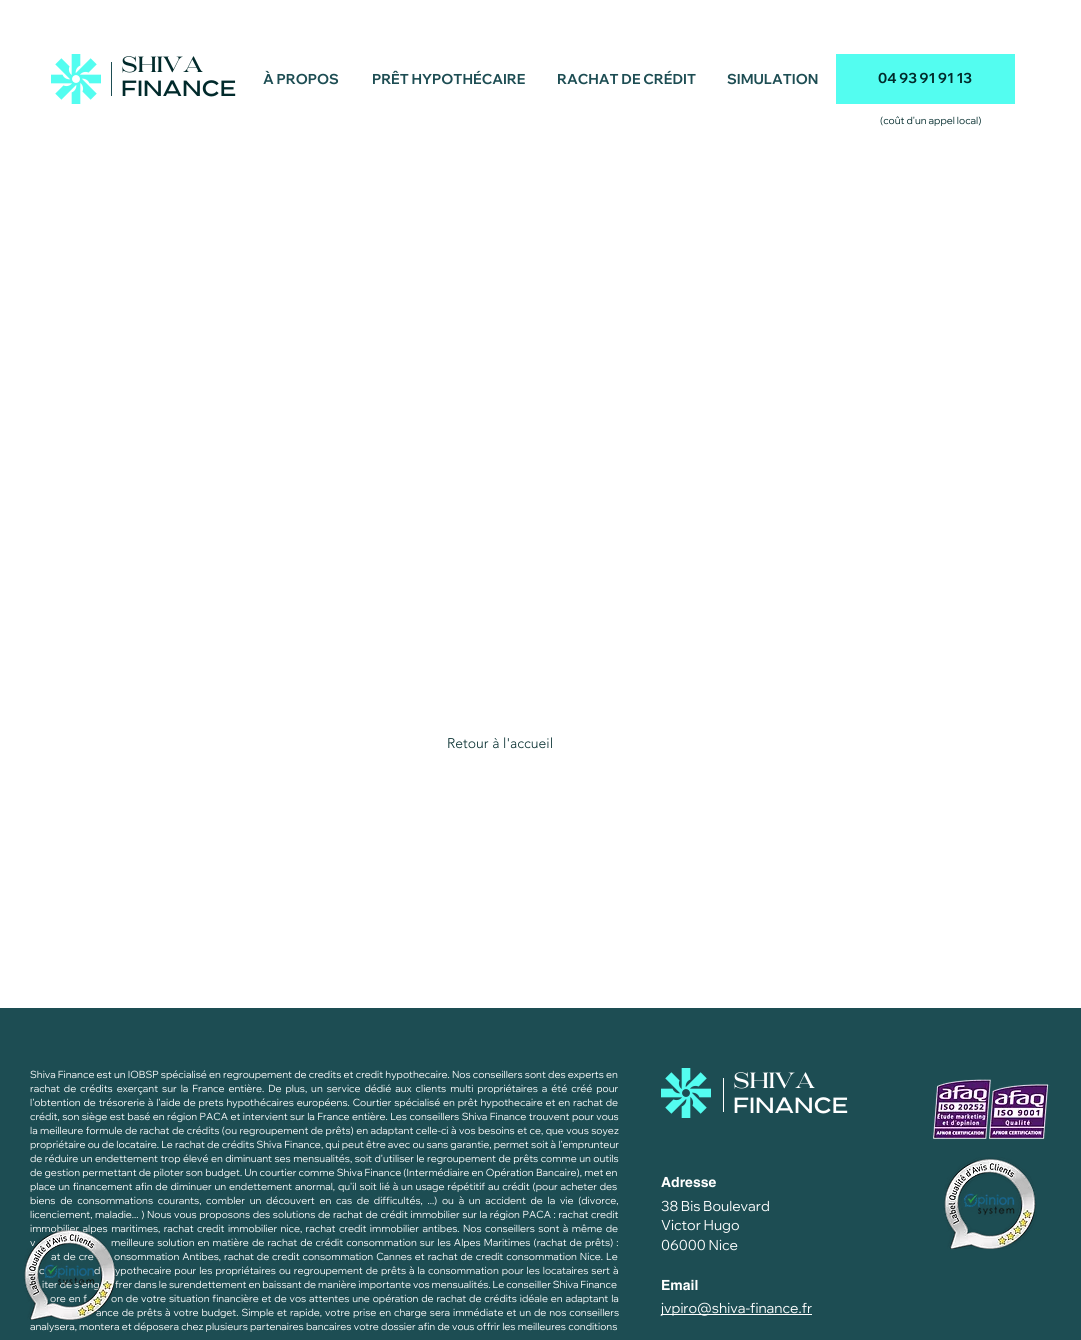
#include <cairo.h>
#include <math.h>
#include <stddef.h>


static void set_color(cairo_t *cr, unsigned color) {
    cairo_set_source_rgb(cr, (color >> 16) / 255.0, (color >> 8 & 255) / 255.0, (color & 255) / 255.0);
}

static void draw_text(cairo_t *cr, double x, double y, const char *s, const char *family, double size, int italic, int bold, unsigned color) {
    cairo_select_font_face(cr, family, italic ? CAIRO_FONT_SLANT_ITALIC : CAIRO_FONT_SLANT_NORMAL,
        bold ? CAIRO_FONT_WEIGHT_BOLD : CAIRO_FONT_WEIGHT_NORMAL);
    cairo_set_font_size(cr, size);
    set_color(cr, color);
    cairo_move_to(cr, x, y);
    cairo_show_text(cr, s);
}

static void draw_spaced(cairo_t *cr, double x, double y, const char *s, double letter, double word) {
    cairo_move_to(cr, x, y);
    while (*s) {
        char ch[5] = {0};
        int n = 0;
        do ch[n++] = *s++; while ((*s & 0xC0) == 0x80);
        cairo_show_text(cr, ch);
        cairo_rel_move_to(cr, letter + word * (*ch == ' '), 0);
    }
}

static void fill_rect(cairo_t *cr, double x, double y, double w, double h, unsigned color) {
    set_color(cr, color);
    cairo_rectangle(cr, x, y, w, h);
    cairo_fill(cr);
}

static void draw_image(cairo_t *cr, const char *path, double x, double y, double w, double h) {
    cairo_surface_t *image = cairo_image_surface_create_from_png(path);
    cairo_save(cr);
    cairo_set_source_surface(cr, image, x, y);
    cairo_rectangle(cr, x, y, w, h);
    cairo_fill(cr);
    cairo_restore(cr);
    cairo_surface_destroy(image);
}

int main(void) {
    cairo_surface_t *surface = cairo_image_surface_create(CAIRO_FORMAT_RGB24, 1081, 1340);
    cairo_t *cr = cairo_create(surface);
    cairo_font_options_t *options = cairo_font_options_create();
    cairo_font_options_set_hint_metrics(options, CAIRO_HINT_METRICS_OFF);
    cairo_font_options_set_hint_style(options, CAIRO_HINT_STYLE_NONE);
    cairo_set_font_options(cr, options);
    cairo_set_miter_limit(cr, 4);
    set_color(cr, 0xFFFFFF);
    cairo_paint(cr);
    draw_image(cr, "assets/img1.png", 51, 54, 50, 50);
    fill_rect(cr, 111, 62, 1, 34, 0x1D4D53);
    draw_text(cr, 121, 72, "shiva", "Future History", 22, 0, 0, 0x012A2B);
    draw_text(cr, 121, 96, "FINANCE", "Future History", 22, 0, 0, 0x012A2B);
    draw_text(cr, 263, 84, "À PROPOS", "Wix Madefor Display", 14, 0, 1, 0x1D4D53);
    draw_text(cr, 372, 84, "PRÊT HYPOTHÉCAIRE", "Wix Madefor Display", 14, 0, 1, 0x1D4D53);
    draw_text(cr, 557, 84, "RACHAT DE CRÉDIT", "Wix Madefor Display", 14, 0, 1, 0x1D4D53);
    draw_text(cr, 727, 84, "SIMULATION", "Wix Madefor Display", 14, 0, 1, 0x1D4D53);
    fill_rect(cr, 836, 54, 179, 50, 0x53FDF0);
    draw_text(cr, 878, 83, "04 93 91 91 13", "Wix Madefor Display", 14, 0, 1, 0x012A2B);
    draw_text(cr, 880, 124, "(coût d'un appel local)", "Wix Madefor Display", 10, 0, 0, 0x012A2B);
    draw_text(cr, 447, 748, "Retour à l'accueil", "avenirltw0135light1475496 Light", 14, 0, 0, 0x012A2B);
    fill_rect(cr, 0, 1008, 1081, 332, 0x1D4D53);
    cairo_select_font_face(cr, "Wix Madefor Display", CAIRO_FONT_SLANT_NORMAL, CAIRO_FONT_WEIGHT_NORMAL);
    cairo_set_font_size(cr, 10);
    set_color(cr, 0xFFFFFF);
    draw_spaced(cr, 30, 1078, "Shiva Finance est un IOBSP spécialisé en regroupement de credits et credit hypothecaire. Nos conseillers sont des experts en", 0, 0.25);
    draw_spaced(cr, 30, 1092, "rachat de crédits exerçant sur la France entière. De plus, un service dédié aux clients multi propriétaires a été créé pour", 0, 2);
    draw_spaced(cr, 30, 1106, "l'obtention de trésorerie à l'aide de prets hypothécaires européens. Courtier spécialisé en prêt hypothecaire et en rachat de", 0, 0.9);
    draw_spaced(cr, 30, 1120, "crédit, son siège est basé en région PACA et intervient sur la France entière. Les conseillers Shiva Finance trouvent pour vous", 0, 0.5);
    draw_spaced(cr, 30, 1134, "la meilleure formule de rachat de crédits (ou regroupement de prêts) en adaptant celle-ci à vos besoins et ce, que vous soyez", 0, 0.5);
    draw_spaced(cr, 30, 1148, "propriétaire ou de locataire. Le rachat de crédits Shiva Finance, qui peut être avec ou sans garantie, permet soit à l'emprunteur", 0, 0.25);
    draw_spaced(cr, 30, 1162, "de réduire un endettement trop élevé en diminuant ses mensualités, soit d'utiliser le regroupement de prêts comme un outils", 0, 0.5);
    draw_spaced(cr, 30, 1176, "de gestion permettant de piloter son budget. Un courtier comme Shiva Finance (Intermédiaire en Opération Bancaire), met en", 0, 0.25);
    draw_spaced(cr, 30, 1190, "place un financement afin de diminuer un endettement anormal, qu'il soit lié à un usage répétitif au crédit (pour acheter des", 0, 0.9);
    draw_spaced(cr, 30, 1204, "biens de consommations courants, combler un découvert en cas de difficultés, ...) ou à un accident de la vie (divorce,", 0, 2.75);
    draw_spaced(cr, 30, 1218, "licenciement, maladie... ) Nous vous proposons des solutions de rachat de crédit immobilier sur la région PACA : rachat credit", 0, 0.7);
    draw_spaced(cr, 30, 1232, "immobilier alpes maritimes, rachat credit immobilier nice, rachat credit immobilier antibes. Nos conseillers sont à même de", 0, 1.5);
    draw_spaced(cr, 30, 1246, "v", 0, 1.1);
    draw_spaced(cr, 111, 1246, "meilleure solution en matière de rachat de crédit consommation sur les Alpes Maritimes (rachat de prêts) :", 0, 1.1);
    draw_spaced(cr, 51, 1260, "at de cre", 0, 1);
    draw_spaced(cr, 114, 1260, "onsommation Antibes, rachat de credit consommation Cannes et rachat de credit consommation Nice. Le", 0, 1);
    draw_spaced(cr, 39, 1274, "c", 0, 1);
    draw_spaced(cr, 94, 1274, "d", 0, 1);
    draw_spaced(cr, 115, 1274, "ypothecaire pour les propriétaires ou regroupement de prêts à la consommation pour les locataires sert à", 0, 1);
    draw_text(cr, 42, 1288, "iter de s'eng", "Wix Madefor Display", 10, 0, 0, 0xFFFFFF);
    draw_text(cr, 115, 1288, "frer dans le surendettement en baissant de manière importante vos mensualités. Le conseiller Shiva Finance", "Wix Madefor Display", 10, 0, 0, 0xFFFFFF);
    draw_spaced(cr, 50, 1302, "ore en f", 0, 0.9);
    draw_spaced(cr, 111, 1302, "on de votre situation financière et de vos attentes une opération de rachat de crédits idéale en adaptant la", 0, 0.9);
    draw_spaced(cr, 96, 1316, "ance de prêts à votre budget. Simple et rapide, votre prise en charge sera immédiate et un de nos conseillers", 0, 1);
    draw_spaced(cr, 30, 1330, "analysera, montera et déposera chez plusieurs partenaires bancaires votre dossier afin de vous offrir les meilleures conditions", 0, 0.3);
    draw_image(cr, "assets/img2.png", 661, 1068, 50, 50);
    fill_rect(cr, 723, 1078, 1, 34, 0xFFFFFF);
    draw_text(cr, 733, 1088, "shiva", "Future History", 22, 0, 0, 0xFFFFFF);
    draw_text(cr, 733, 1113, "FINANCE", "Future History", 22, 0, 0, 0xFFFFFF);
    draw_text(cr, 661, 1187, "Adresse", "helvetica", 14, 0, 1, 0xFFFFFF);
    draw_text(cr, 661, 1211, "38 Bis Boulevard", "Wix Madefor Display", 14, 0, 0, 0xFFFFFF);
    draw_text(cr, 661, 1230, "Victor Hugo", "Wix Madefor Display", 14, 0, 0, 0xFFFFFF);
    draw_text(cr, 661, 1250, "06000 Nice", "Wix Madefor Display", 14, 0, 0, 0xFFFFFF);
    draw_text(cr, 661, 1290, "Email", "helvetica", 14, 0, 1, 0xFFFFFF);
    fill_rect(cr, 661, 1314, 151, 1, 0xFFFFFF);
    draw_text(cr, 661, 1313, "jvpiro@shiva-finance.fr", "Wix Madefor Display", 14, 0, 0, 0xFFFFFF);
    draw_image(cr, "assets/img3.png", 931, 1079, 119, 61);
    draw_image(cr, "assets/img4.png", 943, 1157, 94, 92);
    draw_image(cr, "assets/img5.png", 23, 1228, 95, 92);
    cairo_surface_write_to_png(surface, "output.png");
    cairo_font_options_destroy(options);
    cairo_destroy(cr);
    cairo_surface_destroy(surface);
    return 0;
}
